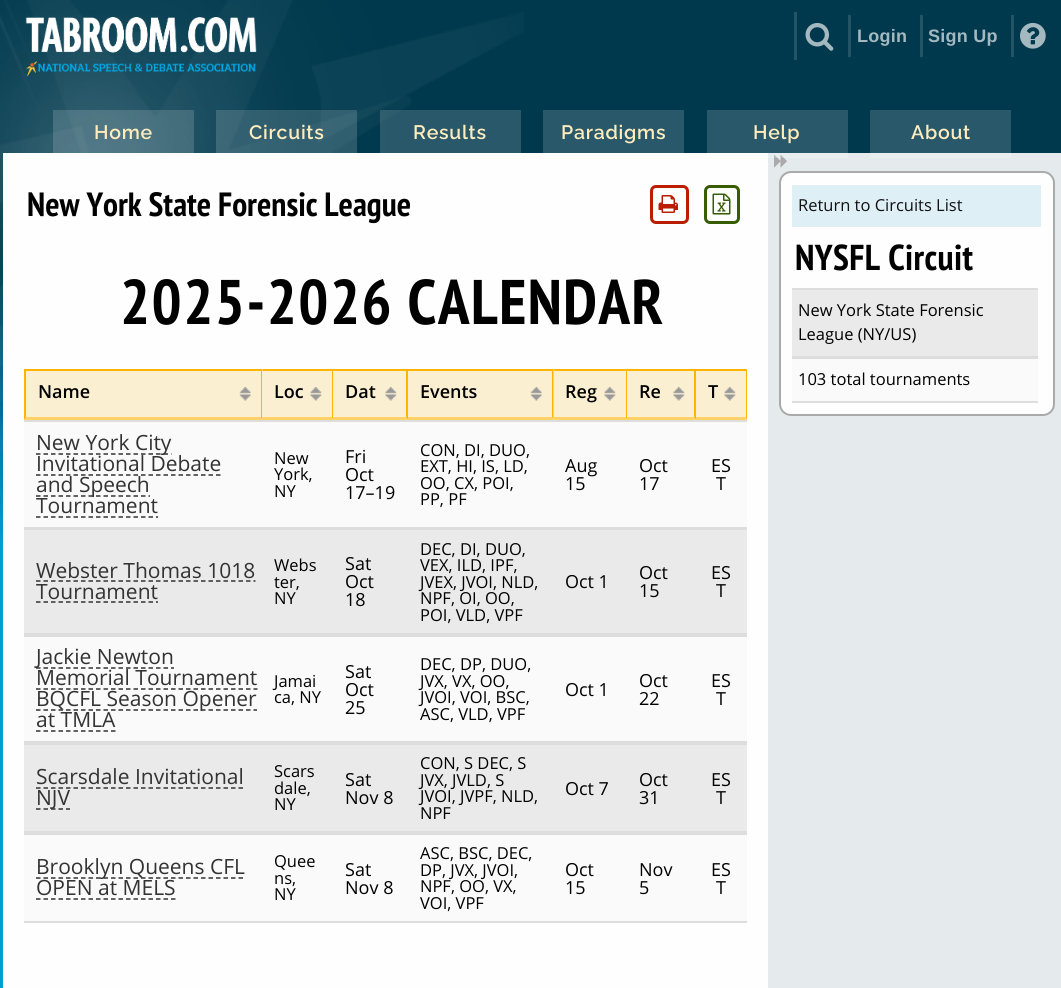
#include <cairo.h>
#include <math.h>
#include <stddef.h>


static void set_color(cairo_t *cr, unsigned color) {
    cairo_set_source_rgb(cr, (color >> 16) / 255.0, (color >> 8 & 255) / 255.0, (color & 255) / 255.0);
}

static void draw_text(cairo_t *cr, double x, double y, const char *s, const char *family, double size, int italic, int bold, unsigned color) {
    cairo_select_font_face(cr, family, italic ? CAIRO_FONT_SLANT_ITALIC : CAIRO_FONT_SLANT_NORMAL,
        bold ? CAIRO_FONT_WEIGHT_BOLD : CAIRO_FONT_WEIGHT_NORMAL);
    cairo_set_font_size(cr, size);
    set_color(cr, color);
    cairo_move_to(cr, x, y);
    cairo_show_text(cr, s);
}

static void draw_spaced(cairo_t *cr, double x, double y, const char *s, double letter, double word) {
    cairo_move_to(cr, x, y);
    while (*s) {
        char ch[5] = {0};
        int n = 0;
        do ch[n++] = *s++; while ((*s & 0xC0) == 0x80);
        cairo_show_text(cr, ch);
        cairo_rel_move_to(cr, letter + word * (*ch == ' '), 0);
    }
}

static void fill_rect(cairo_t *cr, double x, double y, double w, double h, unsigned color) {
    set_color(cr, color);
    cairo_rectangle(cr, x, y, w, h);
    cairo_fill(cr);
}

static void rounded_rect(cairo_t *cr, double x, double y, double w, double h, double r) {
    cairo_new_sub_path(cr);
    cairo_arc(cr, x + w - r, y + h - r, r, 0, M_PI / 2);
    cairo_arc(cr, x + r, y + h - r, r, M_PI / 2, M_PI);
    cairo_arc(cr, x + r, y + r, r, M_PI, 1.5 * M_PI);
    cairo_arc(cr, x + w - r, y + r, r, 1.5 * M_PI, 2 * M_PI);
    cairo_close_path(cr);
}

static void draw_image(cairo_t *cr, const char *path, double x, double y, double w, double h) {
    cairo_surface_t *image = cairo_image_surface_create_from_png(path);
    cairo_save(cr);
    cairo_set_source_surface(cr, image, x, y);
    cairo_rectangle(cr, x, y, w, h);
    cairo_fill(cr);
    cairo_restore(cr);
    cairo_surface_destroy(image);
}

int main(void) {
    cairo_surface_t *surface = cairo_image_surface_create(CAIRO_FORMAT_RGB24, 1061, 988);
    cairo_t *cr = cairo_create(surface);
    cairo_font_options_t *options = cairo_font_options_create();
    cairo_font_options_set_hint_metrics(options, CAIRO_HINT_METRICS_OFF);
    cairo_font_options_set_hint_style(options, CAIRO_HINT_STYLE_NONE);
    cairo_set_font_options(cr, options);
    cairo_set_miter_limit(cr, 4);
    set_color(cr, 0x009CD4);
    cairo_paint(cr);
    draw_image(cr, "assets/img1.png", 0, 0, 1061, 541);
    draw_image(cr, "assets/img2.png", 0, 0, 524, 453);
    draw_image(cr, "assets/img3.png", 25, 17, 232, 60);
    fill_rect(cr, 794, 12, 3, 48, 0x245566);
    draw_image(cr, "assets/img4.png", 805, 22, 29, 29);
    fill_rect(cr, 848, 15, 3, 42, 0x245566);
    cairo_select_font_face(cr, "Liberation Sans", CAIRO_FONT_SLANT_NORMAL, CAIRO_FONT_WEIGHT_BOLD);
    cairo_set_font_size(cr, 18);
    set_color(cr, 0xA3B8BF);
    draw_spaced(cr, 857, 42, "Login", 0.25, 0);
    fill_rect(cr, 920, 15, 3, 42, 0x245566);
    set_color(cr, 0xA3B8BF);
    draw_spaced(cr, 928, 42, "Sign Up", 0.25, 0);
    fill_rect(cr, 1011, 15, 3, 42, 0x245566);
    draw_image(cr, "assets/img5.png", 1020, 22, 26, 27);
    cairo_set_source_rgba(cr, 1, 1, 1, 0.16);
    cairo_rectangle(cr, 53, 110, 141, 43);
    cairo_fill(cr);
    cairo_select_font_face(cr, "Raleway SemiBold", CAIRO_FONT_SLANT_NORMAL, CAIRO_FONT_WEIGHT_NORMAL);
    cairo_set_font_size(cr, 19.5);
    set_color(cr, 0xFFECBD);
    draw_spaced(cr, 94, 139, "Home", 0.75, 0);
    cairo_set_source_rgba(cr, 1, 1, 1, 0.16);
    cairo_rectangle(cr, 216, 110, 141, 43);
    cairo_fill(cr);
    set_color(cr, 0xFFECBD);
    draw_spaced(cr, 249, 139, "Circuits", 0.75, 0);
    cairo_set_source_rgba(cr, 1, 1, 1, 0.16);
    cairo_rectangle(cr, 380, 110, 141, 43);
    cairo_fill(cr);
    set_color(cr, 0xFFECBD);
    draw_spaced(cr, 413, 139, "Results", 0.75, 0);
    cairo_set_source_rgba(cr, 1, 1, 1, 0.16);
    cairo_rectangle(cr, 543, 110, 141, 43);
    cairo_fill(cr);
    set_color(cr, 0xFFECBD);
    draw_spaced(cr, 561, 139, "Paradigms", 0.75, 0);
    fill_rect(cr, 768, 153, 293, 835, 0xE5EBED);
    fill_rect(cr, 3, 153, 765, 835, 0xFEFEFE);
    draw_image(cr, "assets/img14.png", 774, 154, 13, 14);
    cairo_set_source_rgba(cr, 1, 1, 1, 0.16);
    cairo_rectangle(cr, 707, 110, 141, 48);
    cairo_fill(cr);
    set_color(cr, 0xFFECBD);
    draw_spaced(cr, 753, 139, "Help", 0.75, 0);
    cairo_set_source_rgba(cr, 1, 1, 1, 0.16);
    cairo_rectangle(cr, 870, 110, 141, 48);
    cairo_fill(cr);
    set_color(cr, 0xFFECBD);
    draw_spaced(cr, 911, 139, "About", 0.75, 0);
    draw_text(cr, 27, 216, "New York State Forensic League", "PT Sans Narrow", 33.6, 0, 1, 0x000000);
    rounded_rect(cr, 651.5, 186.5, 36, 36, 4.5);
    set_color(cr, 0xBA1D00);
    cairo_set_line_width(cr, 3);
    cairo_stroke(cr);
    draw_image(cr, "assets/img6.png", 658, 195, 20, 18);
    rounded_rect(cr, 705.5, 186.5, 33, 36, 4.5);
    set_color(cr, 0x365E00);
    cairo_stroke(cr);
    draw_image(cr, "assets/img7.png", 712, 193, 19, 22);
    cairo_set_font_size(cr, 63);
    set_color(cr, 0x000000);
    draw_spaced(cr, 120, 324, "2025-2026 CALENDAR", 1.5, 0);
    fill_rect(cr, 24, 371, 723, 49, 0xFBEFD2);
    draw_image(cr, "assets/img8.png", 239, 387, 12, 14);
    fill_rect(cr, 24, 369, 239, 2, 0xFFB400);
    cairo_new_path(cr);
    cairo_move_to(cr, 262, 369);
    cairo_line_to(cr, 262, 420);
    cairo_line_to(cr, 261, 417);
    cairo_line_to(cr, 261, 370);
    cairo_close_path(cr);
    cairo_fill(cr);
    set_color(cr, 0xFFD267);
    cairo_new_path(cr);
    cairo_move_to(cr, 262, 420);
    cairo_line_to(cr, 24, 420);
    cairo_line_to(cr, 26, 417);
    cairo_line_to(cr, 261, 417);
    cairo_close_path(cr);
    cairo_fill(cr);
    set_color(cr, 0xFFB400);
    cairo_new_path(cr);
    cairo_move_to(cr, 24, 420);
    cairo_line_to(cr, 24, 369);
    cairo_line_to(cr, 26, 370);
    cairo_line_to(cr, 26, 417);
    cairo_close_path(cr);
    cairo_fill(cr);
    draw_text(cr, 38, 398, "Name", "Open Sans SemiBold", 18, 0, 0, 0x000000);
    draw_image(cr, "assets/img9.png", 262, 369, 60, 32);
    fill_rect(cr, 263, 369, 291, 2, 0xFFB400);
    cairo_new_path(cr);
    cairo_move_to(cr, 333, 369);
    cairo_line_to(cr, 333, 420);
    cairo_line_to(cr, 332, 417);
    cairo_line_to(cr, 332, 370);
    cairo_close_path(cr);
    cairo_fill(cr);
    set_color(cr, 0xFFD267);
    cairo_new_path(cr);
    cairo_move_to(cr, 333, 420);
    cairo_line_to(cr, 262, 420);
    cairo_line_to(cr, 262, 417);
    cairo_line_to(cr, 332, 417);
    cairo_close_path(cr);
    cairo_fill(cr);
    draw_text(cr, 274, 398, "Loc", "Open Sans SemiBold", 18, 0, 0, 0x000000);
    draw_image(cr, "assets/img10.png", 385, 387, 12, 14);
    set_color(cr, 0xFFB400);
    cairo_new_path(cr);
    cairo_move_to(cr, 408, 369);
    cairo_line_to(cr, 408, 420);
    cairo_line_to(cr, 406, 417);
    cairo_line_to(cr, 406, 370);
    cairo_close_path(cr);
    cairo_fill(cr);
    set_color(cr, 0xFFD267);
    cairo_new_path(cr);
    cairo_move_to(cr, 408, 420);
    cairo_line_to(cr, 333, 420);
    cairo_line_to(cr, 333, 417);
    cairo_line_to(cr, 406, 417);
    cairo_close_path(cr);
    cairo_fill(cr);
    draw_text(cr, 345, 398, "Dat", "Open Sans SemiBold", 18, 0, 0, 0x000000);
    draw_image(cr, "assets/img11.png", 530, 387, 12, 14);
    set_color(cr, 0xFFB400);
    cairo_new_path(cr);
    cairo_move_to(cr, 554, 369);
    cairo_line_to(cr, 554, 420);
    cairo_line_to(cr, 552, 417);
    cairo_line_to(cr, 552, 370);
    cairo_close_path(cr);
    cairo_fill(cr);
    set_color(cr, 0xFFD267);
    cairo_new_path(cr);
    cairo_move_to(cr, 554, 420);
    cairo_line_to(cr, 408, 420);
    cairo_line_to(cr, 408, 417);
    cairo_line_to(cr, 552, 417);
    cairo_close_path(cr);
    cairo_fill(cr);
    draw_text(cr, 420, 398, "Events", "Open Sans SemiBold", 18, 0, 0, 0x000000);
    draw_image(cr, "assets/img12.png", 553, 369, 63, 51);
    fill_rect(cr, 554, 369, 193, 2, 0xFFB400);
    cairo_new_path(cr);
    cairo_move_to(cr, 627, 369);
    cairo_line_to(cr, 627, 420);
    cairo_line_to(cr, 626, 417);
    cairo_line_to(cr, 626, 370);
    cairo_close_path(cr);
    cairo_fill(cr);
    set_color(cr, 0xFFD267);
    cairo_new_path(cr);
    cairo_move_to(cr, 627, 420);
    cairo_line_to(cr, 554, 420);
    cairo_line_to(cr, 554, 417);
    cairo_line_to(cr, 626, 417);
    cairo_close_path(cr);
    cairo_fill(cr);
    draw_text(cr, 565, 398, "Reg", "Open Sans SemiBold", 18, 0, 0, 0x000000);
    draw_image(cr, "assets/img13.png", 673, 387, 12, 14);
    set_color(cr, 0xFFB400);
    cairo_new_path(cr);
    cairo_move_to(cr, 696, 369);
    cairo_line_to(cr, 696, 420);
    cairo_line_to(cr, 694, 417);
    cairo_line_to(cr, 694, 370);
    cairo_close_path(cr);
    cairo_fill(cr);
    set_color(cr, 0xFFD267);
    cairo_new_path(cr);
    cairo_move_to(cr, 696, 420);
    cairo_line_to(cr, 627, 420);
    cairo_line_to(cr, 627, 417);
    cairo_line_to(cr, 694, 417);
    cairo_close_path(cr);
    cairo_fill(cr);
    draw_text(cr, 639, 398, "Re", "Open Sans SemiBold", 18, 0, 0, 0x000000);
    draw_image(cr, "assets/img10.png", 724, 387, 12, 14);
    set_color(cr, 0xFFB400);
    cairo_new_path(cr);
    cairo_move_to(cr, 747, 369);
    cairo_line_to(cr, 747, 420);
    cairo_line_to(cr, 746, 417);
    cairo_line_to(cr, 746, 370);
    cairo_close_path(cr);
    cairo_fill(cr);
    set_color(cr, 0xFFD267);
    cairo_new_path(cr);
    cairo_move_to(cr, 747, 420);
    cairo_line_to(cr, 696, 420);
    cairo_line_to(cr, 696, 417);
    cairo_line_to(cr, 746, 417);
    cairo_close_path(cr);
    cairo_fill(cr);
    draw_text(cr, 708, 398, "T", "Open Sans SemiBold", 18, 0, 0, 0x000000);
    fill_rect(cr, 24, 422, 723, 105, 0xFAFAFA);
    fill_rect(cr, 24, 420, 723, 2, 0xDDDDDD);
    fill_rect(cr, 24, 527, 723, 3, 0xDDDDDD);
    cairo_new_path(cr);
    cairo_move_to(cr, 36, 454);
    cairo_line_to(cr, 171.5, 454);
    set_color(cr, 0x333333);
    cairo_set_line_width(cr, 1.5);
    cairo_set_dash(cr, (double[]){4.5, 3}, 2, 0);
    cairo_stroke(cr);
    draw_text(cr, 36, 450, "New York City", "Open Sans", 21, 0, 0, 0x333333);
    draw_text(cr, 36, 471, "Invitational Debate", "Open Sans", 21, 0, 0, 0x333333);
    cairo_new_path(cr);
    cairo_move_to(cr, 36, 475);
    cairo_line_to(cr, 221.5, 475);
    cairo_stroke(cr);
    cairo_new_path(cr);
    cairo_move_to(cr, 36, 496);
    cairo_line_to(cr, 150, 496);
    cairo_stroke(cr);
    draw_text(cr, 36, 492, "and Speech", "Open Sans", 21, 0, 0, 0x333333);
    draw_text(cr, 36, 513, "Tournament", "Open Sans", 21, 0, 0, 0x333333);
    cairo_new_path(cr);
    cairo_move_to(cr, 36, 517);
    cairo_line_to(cr, 158, 517);
    cairo_stroke(cr);
    draw_text(cr, 274, 464, "New", "Open Sans", 16.5, 0, 0, 0x000000);
    draw_text(cr, 274, 480, "York,", "Open Sans", 16.5, 0, 0, 0x000000);
    draw_text(cr, 274, 497, "NY", "Open Sans", 16.5, 0, 0, 0x000000);
    draw_text(cr, 345, 463, "Fri", "Open Sans", 18, 0, 0, 0x000000);
    draw_text(cr, 345, 481, "Oct", "Open Sans", 18, 0, 0, 0x000000);
    draw_text(cr, 345, 499, "17–19", "Open Sans", 18, 0, 0, 0x000000);
    draw_text(cr, 420, 456, "CON, DI, DUO,", "Open Sans", 16.5, 0, 0, 0x000000);
    draw_text(cr, 420, 472, "EXT, HI, IS, LD,", "Open Sans", 16.5, 0, 0, 0x000000);
    draw_text(cr, 420, 489, "OO, CX, POI,", "Open Sans", 16.5, 0, 0, 0x000000);
    draw_text(cr, 420, 505, "PP, PF", "Open Sans", 16.5, 0, 0, 0x000000);
    draw_text(cr, 565, 472, "Aug", "Open Sans", 18, 0, 0, 0x000000);
    draw_text(cr, 565, 490, "15", "Open Sans", 18, 0, 0, 0x000000);
    draw_text(cr, 639, 472, "Oct", "Open Sans", 18, 0, 0, 0x000000);
    draw_text(cr, 639, 490, "17", "Open Sans", 18, 0, 0, 0x000000);
    draw_text(cr, 711, 472, "ES", "Open Sans", 18, 0, 0, 0x000000);
    draw_text(cr, 716, 490, "T", "Open Sans", 18, 0, 0, 0x000000);
    fill_rect(cr, 24, 530, 723, 103, 0xEAEAEA);
    fill_rect(cr, 24, 633, 723, 4, 0xDDDDDD);
    draw_text(cr, 36, 578, "Webster Thomas 1018", "Open Sans", 21, 0, 0, 0x333333);
    cairo_new_path(cr);
    cairo_move_to(cr, 36, 581);
    cairo_line_to(cr, 255.5, 581);
    cairo_stroke(cr);
    draw_text(cr, 36, 599, "Tournament", "Open Sans", 21, 0, 0, 0x333333);
    cairo_new_path(cr);
    cairo_move_to(cr, 36, 602);
    cairo_line_to(cr, 158, 602);
    cairo_stroke(cr);
    draw_text(cr, 274, 571, "Webs", "Open Sans", 16.5, 0, 0, 0x000000);
    draw_text(cr, 274, 588, "ter,", "Open Sans", 16.5, 0, 0, 0x000000);
    draw_text(cr, 274, 604, "NY", "Open Sans", 16.5, 0, 0, 0x000000);
    draw_text(cr, 345, 570, "Sat", "Open Sans", 18, 0, 0, 0x000000);
    draw_text(cr, 345, 588, "Oct", "Open Sans", 18, 0, 0, 0x000000);
    draw_text(cr, 345, 606, "18", "Open Sans", 18, 0, 0, 0x000000);
    draw_text(cr, 420, 555, "DEC, DI, DUO,", "Open Sans", 16.5, 0, 0, 0x000000);
    draw_text(cr, 420, 571, "VEX, ILD, IPF,", "Open Sans", 16.5, 0, 0, 0x000000);
    draw_text(cr, 420, 588, "JVEX, JVOI, NLD,", "Open Sans", 16.5, 0, 0, 0x000000);
    draw_text(cr, 420, 604, "NPF, OI, OO,", "Open Sans", 16.5, 0, 0, 0x000000);
    draw_text(cr, 420, 621, "POI, VLD, VPF", "Open Sans", 16.5, 0, 0, 0x000000);
    draw_text(cr, 565, 588, "Oct 1", "Open Sans", 18, 0, 0, 0x000000);
    draw_text(cr, 639, 579, "Oct", "Open Sans", 18, 0, 0, 0x000000);
    draw_text(cr, 639, 597, "15", "Open Sans", 18, 0, 0, 0x000000);
    draw_text(cr, 711, 579, "ES", "Open Sans", 18, 0, 0, 0x000000);
    draw_text(cr, 716, 597, "T", "Open Sans", 18, 0, 0, 0x000000);
    fill_rect(cr, 24, 637, 723, 104, 0xFAFAFA);
    fill_rect(cr, 24, 741, 723, 4, 0xDDDDDD);
    cairo_new_path(cr);
    cairo_move_to(cr, 36, 668);
    cairo_line_to(cr, 174, 668);
    set_color(cr, 0x333333);
    cairo_stroke(cr);
    draw_text(cr, 36, 664, "Jackie Newton", "Open Sans", 21, 0, 0, 0x333333);
    draw_text(cr, 36, 685, "Memorial Tournament", "Open Sans", 21, 0, 0, 0x333333);
    cairo_new_path(cr);
    cairo_move_to(cr, 36, 689);
    cairo_line_to(cr, 257.5, 689);
    cairo_stroke(cr);
    cairo_new_path(cr);
    cairo_move_to(cr, 36, 710);
    cairo_line_to(cr, 257, 710);
    cairo_stroke(cr);
    draw_text(cr, 36, 706, "BQCFL Season Opener", "Open Sans", 21, 0, 0, 0x333333);
    draw_text(cr, 36, 727, "at TMLA", "Open Sans", 21, 0, 0, 0x333333);
    cairo_new_path(cr);
    cairo_move_to(cr, 36, 731);
    cairo_line_to(cr, 115.5, 731);
    cairo_stroke(cr);
    draw_text(cr, 274, 687, "Jamai", "Open Sans", 16.5, 0, 0, 0x000000);
    draw_text(cr, 274, 703, "ca, NY", "Open Sans", 16.5, 0, 0, 0x000000);
    draw_text(cr, 345, 678, "Sat", "Open Sans", 18, 0, 0, 0x000000);
    draw_text(cr, 345, 696, "Oct", "Open Sans", 18, 0, 0, 0x000000);
    draw_text(cr, 345, 714, "25", "Open Sans", 18, 0, 0, 0x000000);
    draw_text(cr, 420, 670, "DEC, DP, DUO,", "Open Sans", 16.5, 0, 0, 0x000000);
    draw_text(cr, 420, 687, "JVX, VX, OO,", "Open Sans", 16.5, 0, 0, 0x000000);
    draw_text(cr, 420, 703, "JVOI, VOI, BSC,", "Open Sans", 16.5, 0, 0, 0x000000);
    draw_text(cr, 420, 720, "ASC, VLD, VPF", "Open Sans", 16.5, 0, 0, 0x000000);
    draw_text(cr, 565, 696, "Oct 1", "Open Sans", 18, 0, 0, 0x000000);
    draw_text(cr, 639, 687, "Oct", "Open Sans", 18, 0, 0, 0x000000);
    draw_text(cr, 639, 705, "22", "Open Sans", 18, 0, 0, 0x000000);
    draw_text(cr, 711, 687, "ES", "Open Sans", 18, 0, 0, 0x000000);
    draw_text(cr, 716, 705, "T", "Open Sans", 18, 0, 0, 0x000000);
    fill_rect(cr, 24, 745, 723, 86, 0xEAEAEA);
    fill_rect(cr, 24, 831, 723, 4, 0xDDDDDD);
    draw_text(cr, 36, 784, "Scarsdale Invitational", "Open Sans", 21, 0, 0, 0x333333);
    cairo_new_path(cr);
    cairo_move_to(cr, 36, 788);
    cairo_line_to(cr, 244, 788);
    cairo_stroke(cr);
    cairo_new_path(cr);
    cairo_move_to(cr, 36, 809);
    cairo_line_to(cr, 70, 809);
    cairo_stroke(cr);
    draw_text(cr, 36, 805, "NJV", "Open Sans", 21, 0, 0, 0x333333);
    draw_text(cr, 274, 777, "Scars", "Open Sans", 16.5, 0, 0, 0x000000);
    draw_text(cr, 274, 794, "dale,", "Open Sans", 16.5, 0, 0, 0x000000);
    draw_text(cr, 274, 810, "NY", "Open Sans", 16.5, 0, 0, 0x000000);
    draw_text(cr, 345, 786, "Sat", "Open Sans", 18, 0, 0, 0x000000);
    draw_text(cr, 345, 804, "Nov 8", "Open Sans", 18, 0, 0, 0x000000);
    draw_text(cr, 420, 769, "CON, S DEC, S", "Open Sans", 16.5, 0, 0, 0x000000);
    draw_text(cr, 420, 786, "JVX, JVLD, S", "Open Sans", 16.5, 0, 0, 0x000000);
    draw_text(cr, 420, 802, "JVOI, JVPF, NLD,", "Open Sans", 16.5, 0, 0, 0x000000);
    draw_text(cr, 420, 819, "NPF", "Open Sans", 16.5, 0, 0, 0x000000);
    draw_text(cr, 565, 795, "Oct 7", "Open Sans", 18, 0, 0, 0x000000);
    draw_text(cr, 639, 786, "Oct", "Open Sans", 18, 0, 0, 0x000000);
    draw_text(cr, 639, 804, "31", "Open Sans", 18, 0, 0, 0x000000);
    draw_text(cr, 711, 786, "ES", "Open Sans", 18, 0, 0, 0x000000);
    draw_text(cr, 716, 804, "T", "Open Sans", 18, 0, 0, 0x000000);
    fill_rect(cr, 24, 835, 723, 86, 0xFAFAFA);
    fill_rect(cr, 24, 921, 723, 2, 0xDDDDDD);
    cairo_new_path(cr);
    cairo_move_to(cr, 36, 878);
    cairo_line_to(cr, 245, 878);
    set_color(cr, 0x333333);
    cairo_stroke(cr);
    draw_text(cr, 36, 874, "Brooklyn Queens CFL", "Open Sans", 21, 0, 0, 0x333333);
    draw_text(cr, 36, 895, "OPEN at MELS", "Open Sans", 21, 0, 0, 0x333333);
    cairo_new_path(cr);
    cairo_move_to(cr, 36, 899);
    cairo_line_to(cr, 176, 899);
    cairo_stroke(cr);
    draw_text(cr, 274, 867, "Quee", "Open Sans", 16.5, 0, 0, 0x000000);
    draw_text(cr, 274, 884, "ns,", "Open Sans", 16.5, 0, 0, 0x000000);
    draw_text(cr, 274, 900, "NY", "Open Sans", 16.5, 0, 0, 0x000000);
    draw_text(cr, 345, 876, "Sat", "Open Sans", 18, 0, 0, 0x000000);
    draw_text(cr, 345, 894, "Nov 8", "Open Sans", 18, 0, 0, 0x000000);
    draw_text(cr, 420, 859, "ASC, BSC, DEC,", "Open Sans", 16.5, 0, 0, 0x000000);
    draw_text(cr, 420, 876, "DP, JVX, JVOI,", "Open Sans", 16.5, 0, 0, 0x000000);
    draw_text(cr, 420, 892, "NPF, OO, VX,", "Open Sans", 16.5, 0, 0, 0x000000);
    draw_text(cr, 420, 909, "VOI, VPF", "Open Sans", 16.5, 0, 0, 0x000000);
    draw_text(cr, 565, 876, "Oct", "Open Sans", 18, 0, 0, 0x000000);
    draw_text(cr, 565, 894, "15", "Open Sans", 18, 0, 0, 0x000000);
    draw_text(cr, 639, 876, "Nov", "Open Sans", 18, 0, 0, 0x000000);
    draw_text(cr, 639, 894, "5", "Open Sans", 18, 0, 0, 0x000000);
    draw_text(cr, 711, 876, "ES", "Open Sans", 18, 0, 0, 0x000000);
    draw_text(cr, 716, 894, "T", "Open Sans", 18, 0, 0, 0x000000);
    set_color(cr, 0xFEFEFE);
    rounded_rect(cr, 780, 172, 274, 243, 11);
    cairo_fill_preserve(cr);
    set_color(cr, 0xAAAAAA);
    cairo_set_line_width(cr, 2);
    cairo_set_dash(cr, NULL, 0, 0);
    cairo_stroke(cr);
    fill_rect(cr, 792, 185, 249, 42, 0xDFEFF6);
    draw_text(cr, 798, 211, "Return to Circuits List", "Open Sans", 16.5, 0, 0, 0x111111);
    cairo_select_font_face(cr, "PT Sans Narrow", CAIRO_FONT_SLANT_NORMAL, CAIRO_FONT_WEIGHT_BOLD);
    cairo_set_font_size(cr, 36);
    set_color(cr, 0x000000);
    draw_spaced(cr, 795, 270, "NYSFL Circuit", 0.4, 0);
    fill_rect(cr, 792, 290, 246, 66, 0xEAEAEA);
    fill_rect(cr, 792, 288, 246, 2, 0xDDDDDD);
    fill_rect(cr, 792, 356, 246, 3, 0xDDDDDD);
    draw_text(cr, 798, 316, "New York State Forensic", "Open Sans", 16.5, 0, 0, 0x000000);
    draw_text(cr, 798, 340, "League (NY/US)", "Open Sans", 16.5, 0, 0, 0x000000);
    fill_rect(cr, 792, 359, 246, 42, 0xFAFAFA);
    fill_rect(cr, 792, 401, 246, 2, 0xDDDDDD);
    draw_text(cr, 798, 385, "103 total tournaments", "Open Sans", 16.5, 0, 0, 0x000000);
    cairo_surface_write_to_png(surface, "output.png");
    cairo_font_options_destroy(options);
    cairo_destroy(cr);
    cairo_surface_destroy(surface);
    return 0;
}
